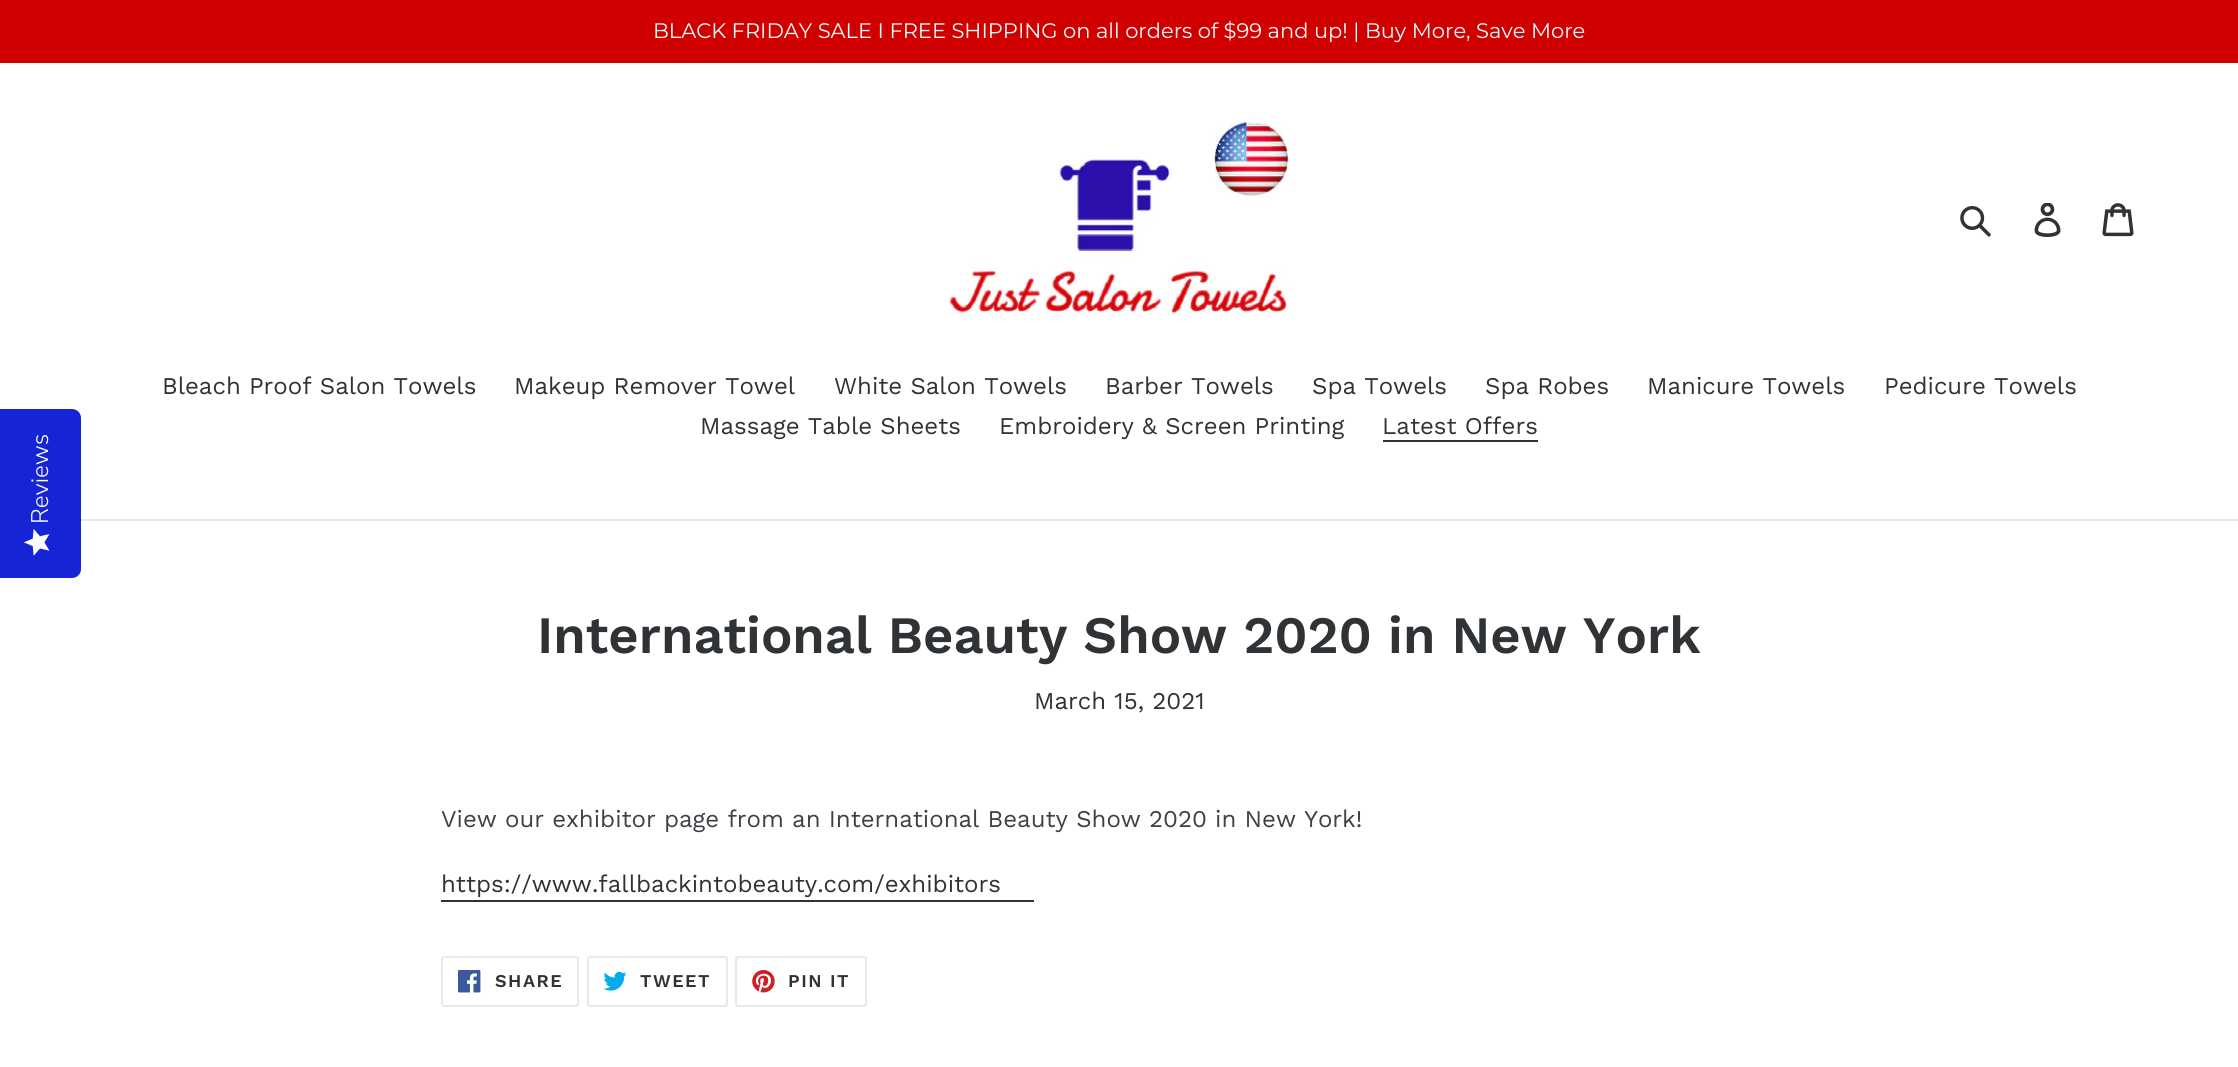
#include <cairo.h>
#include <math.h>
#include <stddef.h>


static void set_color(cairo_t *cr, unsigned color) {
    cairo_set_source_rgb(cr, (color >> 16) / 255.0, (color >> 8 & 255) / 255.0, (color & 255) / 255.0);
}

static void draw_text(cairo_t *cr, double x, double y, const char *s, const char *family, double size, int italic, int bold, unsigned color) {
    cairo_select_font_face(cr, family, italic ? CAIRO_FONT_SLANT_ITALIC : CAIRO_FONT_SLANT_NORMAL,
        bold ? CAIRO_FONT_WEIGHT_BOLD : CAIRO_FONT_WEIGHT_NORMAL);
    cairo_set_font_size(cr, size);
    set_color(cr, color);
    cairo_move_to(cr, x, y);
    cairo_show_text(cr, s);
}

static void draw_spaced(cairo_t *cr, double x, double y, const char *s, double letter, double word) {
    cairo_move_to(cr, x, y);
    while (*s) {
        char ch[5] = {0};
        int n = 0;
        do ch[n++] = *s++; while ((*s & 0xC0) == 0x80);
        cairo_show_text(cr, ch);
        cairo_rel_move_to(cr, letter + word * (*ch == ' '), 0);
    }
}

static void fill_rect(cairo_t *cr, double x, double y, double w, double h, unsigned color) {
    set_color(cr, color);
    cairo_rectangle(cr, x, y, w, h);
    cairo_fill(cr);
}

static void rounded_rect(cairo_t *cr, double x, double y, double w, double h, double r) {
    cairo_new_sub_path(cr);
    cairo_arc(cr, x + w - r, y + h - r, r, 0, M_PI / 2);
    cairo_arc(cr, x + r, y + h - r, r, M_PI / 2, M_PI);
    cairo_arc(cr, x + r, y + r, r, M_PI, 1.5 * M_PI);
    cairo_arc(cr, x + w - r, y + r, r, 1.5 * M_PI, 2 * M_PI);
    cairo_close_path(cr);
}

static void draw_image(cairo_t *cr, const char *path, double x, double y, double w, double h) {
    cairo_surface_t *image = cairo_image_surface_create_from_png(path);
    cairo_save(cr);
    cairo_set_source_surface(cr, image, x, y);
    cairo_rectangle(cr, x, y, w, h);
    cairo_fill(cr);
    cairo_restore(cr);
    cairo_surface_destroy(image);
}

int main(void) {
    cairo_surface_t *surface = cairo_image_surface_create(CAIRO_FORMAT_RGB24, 2238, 1067);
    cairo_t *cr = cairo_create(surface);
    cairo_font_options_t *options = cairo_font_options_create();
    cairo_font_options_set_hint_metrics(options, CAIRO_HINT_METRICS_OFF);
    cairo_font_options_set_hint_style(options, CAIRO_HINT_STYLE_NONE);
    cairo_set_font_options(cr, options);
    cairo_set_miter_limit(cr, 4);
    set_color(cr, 0xFFFFFF);
    cairo_paint(cr);
    fill_rect(cr, 0, 0, 2238, 63, 0xD10000);
    draw_text(cr, 653, 38, "BLACK FRIDAY SALE I FREE SHIPPING on all orders of $99 and up! | Buy More, Save More", "Montserrat Thin", 21, 0, 0, 0xFEFEFE);
    draw_image(cr, "assets/img1.png", 948, 120, 342, 195);
    draw_image(cr, "assets/img2.png", 1960, 206, 31, 31);
    draw_image(cr, "assets/img3.png", 2034, 203, 27, 34);
    draw_image(cr, "assets/img4.png", 2102, 203, 32, 34);
    fill_rect(cr, 81, 519, 2157, 2, 0xE8E9EB);
    draw_text(cr, 162, 394, "Bleach Proof Salon Towels", "Work Sans", 24, 0, 0, 0x2F3336);
    draw_text(cr, 514, 394, "Makeup Remover Towel", "Work Sans", 24, 0, 0, 0x2F3336);
    draw_text(cr, 834, 394, "White Salon Towels", "Work Sans", 24, 0, 0, 0x2F3336);
    draw_text(cr, 1105, 394, "Barber Towels", "Work Sans", 24, 0, 0, 0x2F3336);
    draw_text(cr, 1312, 394, "Spa Towels", "Work Sans", 24, 0, 0, 0x2F3336);
    draw_text(cr, 1485, 394, "Spa Robes", "Work Sans", 24, 0, 0, 0x2F3336);
    draw_text(cr, 1647, 394, "Manicure Towels", "Work Sans", 24, 0, 0, 0x2F3336);
    draw_text(cr, 1884, 394, "Pedicure Towels", "Work Sans", 24, 0, 0, 0x2F3336);
    draw_text(cr, 700, 434, "Massage Table Sheets", "Work Sans", 24, 0, 0, 0x2F3336);
    draw_text(cr, 999, 434, "Embroidery & Screen Printing", "Work Sans", 24, 0, 0, 0x2F3336);
    draw_text(cr, 1382, 434, "Latest Offers", "Work Sans", 24, 0, 0, 0x2F3336);
    fill_rect(cr, 1383, 440, 155, 2, 0x2F3336);
    set_color(cr, 0x1525D6);
    cairo_new_path(cr);
    cairo_move_to(cr, 0, 578);
    cairo_line_to(cr, 0, 409);
    cairo_line_to(cr, 72, 409);
    cairo_curve_to(cr, 77, 409, 81, 413, 81, 418);
    cairo_line_to(cr, 81, 569);
    cairo_curve_to(cr, 81, 574, 77, 578, 72, 578);
    cairo_close_path(cr);
    cairo_fill(cr);
    cairo_save(cr);
    cairo_translate(cr, 48, 524);
    cairo_rotate(cr, -90 * M_PI / 180);
    draw_text(cr, 0, 0, "Reviews", "Nunito Sans Light", 24, 0, 0, 0xFEFEFE);
    cairo_restore(cr);
    draw_image(cr, "assets/img5.png", 24, 529, 26, 27);
    draw_text(cr, 537, 653, "International Beauty Show 2020 in New York", "Work Sans SemiBold", 52.5, 0, 0, 0x2F3336);
    draw_text(cr, 1034, 709, "March 15, 2021", "Work Sans", 24, 0, 0, 0x2F3336);
    draw_text(cr, 441, 827, "View our exhibitor page from an International Beauty Show 2020 in New York!", "Work Sans", 24, 0, 0, 0x3E4145);
    draw_text(cr, 441, 892, "https://www.fallbackintobeauty.com/exhibitors", "Work Sans", 24, 0, 0, 0x2F3336);
    fill_rect(cr, 441, 900, 593, 2, 0x2F3336);
    rounded_rect(cr, 442, 957, 136, 49, 2);
    set_color(cr, 0xE8E9EB);
    cairo_stroke(cr);
    draw_image(cr, "assets/img6.png", 458, 970, 23, 23);
    cairo_select_font_face(cr, "Work Sans SemiBold", CAIRO_FONT_SLANT_NORMAL, CAIRO_FONT_WEIGHT_NORMAL);
    cairo_set_font_size(cr, 18);
    set_color(cr, 0x2F3336);
    draw_spaced(cr, 495, 987, "SHARE", 1.5, 0);
    rounded_rect(cr, 588, 957, 139, 49, 2);
    set_color(cr, 0xE8E9EB);
    cairo_stroke(cr);
    draw_image(cr, "assets/img7.png", 603, 971, 24, 20);
    set_color(cr, 0x2F3336);
    draw_spaced(cr, 640, 987, "TWEET", 1.5, 0);
    rounded_rect(cr, 736, 957, 130, 49, 2);
    set_color(cr, 0xE8E9EB);
    cairo_stroke(cr);
    draw_image(cr, "assets/img8.png", 752, 970, 23, 23);
    set_color(cr, 0x2F3336);
    draw_spaced(cr, 788, 987, "PIN IT", 1.5, 0);
    cairo_surface_write_to_png(surface, "output.png");
    cairo_font_options_destroy(options);
    cairo_destroy(cr);
    cairo_surface_destroy(surface);
    return 0;
}
